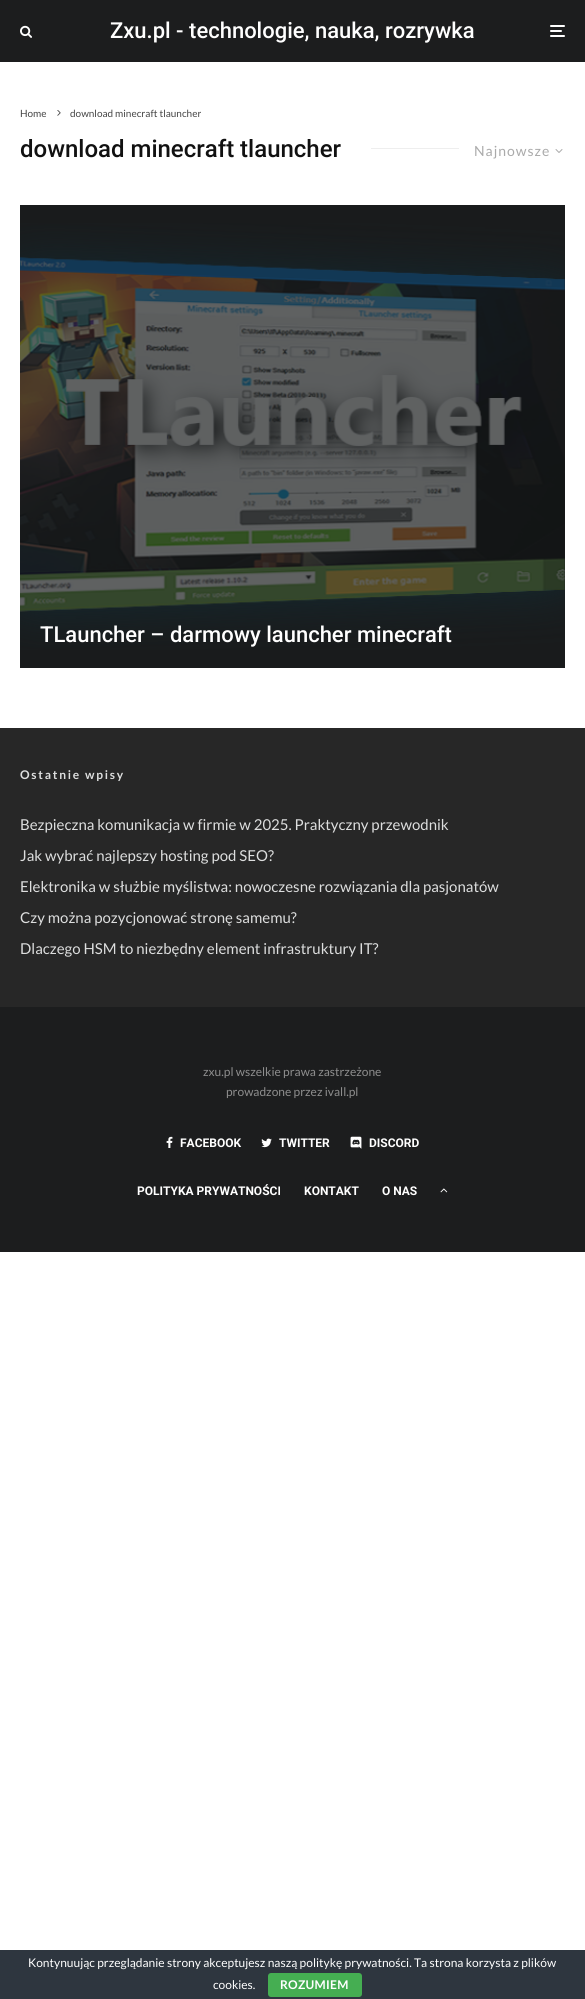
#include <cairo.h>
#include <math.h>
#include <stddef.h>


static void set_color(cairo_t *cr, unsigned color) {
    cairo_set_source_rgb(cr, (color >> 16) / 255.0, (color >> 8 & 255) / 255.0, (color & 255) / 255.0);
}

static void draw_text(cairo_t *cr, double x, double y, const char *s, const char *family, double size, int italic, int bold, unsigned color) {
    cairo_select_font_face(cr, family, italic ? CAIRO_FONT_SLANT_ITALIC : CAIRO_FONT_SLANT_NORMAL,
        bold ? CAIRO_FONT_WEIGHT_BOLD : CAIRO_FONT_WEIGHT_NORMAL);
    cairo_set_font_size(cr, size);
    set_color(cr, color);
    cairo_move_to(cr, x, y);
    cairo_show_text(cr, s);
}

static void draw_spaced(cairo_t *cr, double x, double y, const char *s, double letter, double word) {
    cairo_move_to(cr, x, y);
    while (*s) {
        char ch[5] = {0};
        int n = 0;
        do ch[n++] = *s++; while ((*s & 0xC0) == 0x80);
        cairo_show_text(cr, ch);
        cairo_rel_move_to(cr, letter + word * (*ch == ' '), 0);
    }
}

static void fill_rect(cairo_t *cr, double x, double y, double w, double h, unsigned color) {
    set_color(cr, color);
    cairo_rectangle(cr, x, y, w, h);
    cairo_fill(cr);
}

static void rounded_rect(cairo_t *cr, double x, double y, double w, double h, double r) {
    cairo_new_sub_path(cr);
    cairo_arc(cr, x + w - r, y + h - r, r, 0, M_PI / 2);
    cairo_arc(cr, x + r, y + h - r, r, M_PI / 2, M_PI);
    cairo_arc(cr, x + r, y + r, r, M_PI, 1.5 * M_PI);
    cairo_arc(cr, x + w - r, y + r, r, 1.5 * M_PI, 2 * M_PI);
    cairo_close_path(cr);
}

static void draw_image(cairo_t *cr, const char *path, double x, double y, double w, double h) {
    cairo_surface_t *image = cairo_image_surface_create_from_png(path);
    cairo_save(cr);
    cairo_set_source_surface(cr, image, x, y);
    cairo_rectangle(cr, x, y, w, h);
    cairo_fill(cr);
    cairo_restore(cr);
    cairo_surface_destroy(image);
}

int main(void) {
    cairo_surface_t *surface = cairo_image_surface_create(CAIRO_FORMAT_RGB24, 585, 1999);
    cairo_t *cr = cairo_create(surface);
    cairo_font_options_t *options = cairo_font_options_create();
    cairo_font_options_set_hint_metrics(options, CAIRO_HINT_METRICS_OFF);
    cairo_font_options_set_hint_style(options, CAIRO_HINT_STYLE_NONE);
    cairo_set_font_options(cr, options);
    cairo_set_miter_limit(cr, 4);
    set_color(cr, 0xFFFFFF);
    cairo_paint(cr);
    fill_rect(cr, 0, 0, 585, 62, 0x1C1D1E);
    draw_image(cr, "assets/img1.png", 20, 25, 12, 13);
    draw_text(cr, 110, 38, "Zxu.pl - technologie, nauka, rozrywka", "Roboto Medium", 22, 0, 0, 0xFFFFFF);
    rounded_rect(cr, 550, 30, 12, 2, 1);
    cairo_fill(cr);
    rounded_rect(cr, 550, 25, 15, 2, 1);
    cairo_fill(cr);
    rounded_rect(cr, 550, 35, 15, 2, 1);
    cairo_fill(cr);
    draw_text(cr, 20, 117, "Home", "Lato", 10, 0, 0, 0x444444);
    draw_image(cr, "assets/img2.png", 57, 110, 4, 6);
    draw_text(cr, 70, 117, "download minecraft tlauncher", "Lato", 10, 0, 0, 0x444444);
    draw_text(cr, 20, 157, "download minecraft tlauncher", "Roboto Medium", 24, 0, 0, 0x111111);
    fill_rect(cr, 371, 148, 88, 1, 0xEEEEEE);
    cairo_select_font_face(cr, "Lato", CAIRO_FONT_SLANT_NORMAL, CAIRO_FONT_WEIGHT_NORMAL);
    cairo_set_font_size(cr, 14);
    set_color(cr, 0xAAAAAA);
    draw_spaced(cr, 474, 156, "Najnowsze", 1, 0);
    draw_image(cr, "assets/img3.png", 555, 149, 8, 4);
    fill_rect(cr, 20, 205, 545, 463, 0x191B1C);
    draw_image(cr, "assets/img4.png", 20, 223, 545, 427);
    draw_text(cr, 40, 642, "TLauncher – darmowy launcher minecraft", "Roboto Medium", 22, 0, 0, 0xFFFFFF);
    fill_rect(cr, 0, 728, 585, 279, 0x272727);
    cairo_select_font_face(cr, "Lato", CAIRO_FONT_SLANT_NORMAL, CAIRO_FONT_WEIGHT_BOLD);
    cairo_set_font_size(cr, 12);
    set_color(cr, 0xDDDEDE);
    draw_spaced(cr, 20, 779, "Ostatnie wpisy", 1.75, 0);
    draw_text(cr, 20, 830, "Bezpieczna komunikacja w firmie w 2025. Praktyczny przewodnik", "Lato", 15, 0, 0, 0xDDDEDE);
    draw_text(cr, 20, 861, "Jak wybrać najlepszy hosting pod SEO?", "Lato", 15, 0, 0, 0xDDDEDE);
    draw_text(cr, 20, 892, "Elektronika w służbie myślistwa: nowoczesne rozwiązania dla pasjonatów", "Lato", 15, 0, 0, 0xDDDEDE);
    draw_text(cr, 20, 923, "Czy można pozycjonować stronę samemu?", "Lato", 15, 0, 0, 0xDDDEDE);
    draw_text(cr, 20, 954, "Dlaczego HSM to niezbędny element infrastruktury IT?", "Lato", 15, 0, 0, 0xDDDEDE);
    fill_rect(cr, 0, 1007, 585, 245, 0x1C1D1E);
    draw_text(cr, 203, 1076, "zxu.pl wszelkie prawa zastrzeżone", "Lato", 12, 0, 0, 0x8E8E8E);
    draw_text(cr, 226, 1096, "prowadzone przez ivall.pl", "Lato", 12, 0, 0, 0x8E8E8E);
    draw_image(cr, "assets/img5.png", 166, 1136, 7, 12);
    draw_text(cr, 180, 1147, "FACEBOOK", "Roboto", 12, 0, 1, 0xFFFFFF);
    draw_image(cr, "assets/img6.png", 261, 1138, 11, 10);
    draw_text(cr, 279, 1147, "TWITTER", "Roboto", 12, 0, 1, 0xFFFFFF);
    draw_image(cr, "assets/img7.png", 350, 1136, 12, 13);
    draw_text(cr, 369, 1147, "DISCORD", "Roboto", 12, 0, 1, 0xFFFFFF);
    draw_text(cr, 137, 1195, "POLITYKA PRYWATNOŚCI", "Roboto", 12, 0, 1, 0xFFFFFF);
    draw_text(cr, 304, 1195, "KONTAKT", "Roboto", 12, 0, 1, 0xFFFFFF);
    draw_text(cr, 382, 1195, "O NAS", "Roboto", 12, 0, 1, 0xFFFFFF);
    draw_image(cr, "assets/img8.png", 440, 1188, 8, 5);
    fill_rect(cr, 0, 1950, 585, 49, 0x2E363F);
    draw_text(cr, 28, 1967, "Kontynuując przeglądanie strony akceptujesz naszą politykę prywatności. Ta strona korzysta z plików", "Lato", 12, 0, 0, 0xFFFFFF);
    draw_text(cr, 213, 1989, "cookies.", "Lato", 12, 0, 0, 0xFFFFFF);
    set_color(cr, 0x45AE52);
    rounded_rect(cr, 268, 1973, 94, 24, 3);
    cairo_fill(cr);
    cairo_select_font_face(cr, "Lato", CAIRO_FONT_SLANT_NORMAL, CAIRO_FONT_WEIGHT_BOLD);
    set_color(cr, 0xFFFFFF);
    draw_spaced(cr, 280, 1989, "ROZUMIEM", 0.25, 0);
    cairo_surface_write_to_png(surface, "output.png");
    cairo_font_options_destroy(options);
    cairo_destroy(cr);
    cairo_surface_destroy(surface);
    return 0;
}
